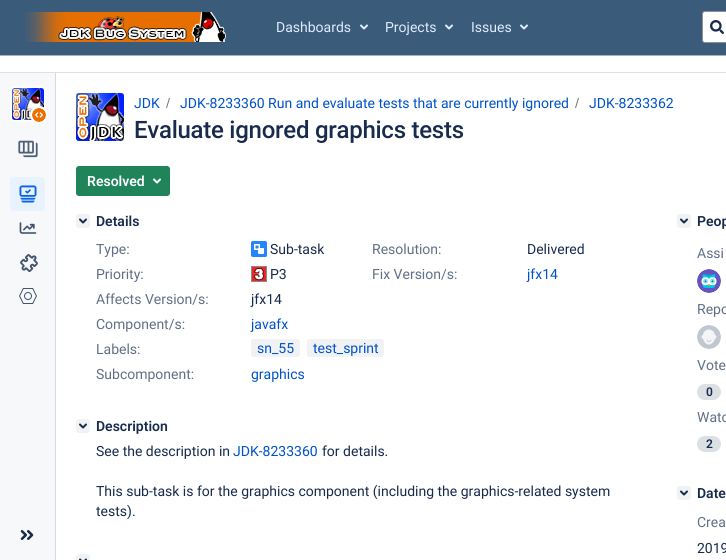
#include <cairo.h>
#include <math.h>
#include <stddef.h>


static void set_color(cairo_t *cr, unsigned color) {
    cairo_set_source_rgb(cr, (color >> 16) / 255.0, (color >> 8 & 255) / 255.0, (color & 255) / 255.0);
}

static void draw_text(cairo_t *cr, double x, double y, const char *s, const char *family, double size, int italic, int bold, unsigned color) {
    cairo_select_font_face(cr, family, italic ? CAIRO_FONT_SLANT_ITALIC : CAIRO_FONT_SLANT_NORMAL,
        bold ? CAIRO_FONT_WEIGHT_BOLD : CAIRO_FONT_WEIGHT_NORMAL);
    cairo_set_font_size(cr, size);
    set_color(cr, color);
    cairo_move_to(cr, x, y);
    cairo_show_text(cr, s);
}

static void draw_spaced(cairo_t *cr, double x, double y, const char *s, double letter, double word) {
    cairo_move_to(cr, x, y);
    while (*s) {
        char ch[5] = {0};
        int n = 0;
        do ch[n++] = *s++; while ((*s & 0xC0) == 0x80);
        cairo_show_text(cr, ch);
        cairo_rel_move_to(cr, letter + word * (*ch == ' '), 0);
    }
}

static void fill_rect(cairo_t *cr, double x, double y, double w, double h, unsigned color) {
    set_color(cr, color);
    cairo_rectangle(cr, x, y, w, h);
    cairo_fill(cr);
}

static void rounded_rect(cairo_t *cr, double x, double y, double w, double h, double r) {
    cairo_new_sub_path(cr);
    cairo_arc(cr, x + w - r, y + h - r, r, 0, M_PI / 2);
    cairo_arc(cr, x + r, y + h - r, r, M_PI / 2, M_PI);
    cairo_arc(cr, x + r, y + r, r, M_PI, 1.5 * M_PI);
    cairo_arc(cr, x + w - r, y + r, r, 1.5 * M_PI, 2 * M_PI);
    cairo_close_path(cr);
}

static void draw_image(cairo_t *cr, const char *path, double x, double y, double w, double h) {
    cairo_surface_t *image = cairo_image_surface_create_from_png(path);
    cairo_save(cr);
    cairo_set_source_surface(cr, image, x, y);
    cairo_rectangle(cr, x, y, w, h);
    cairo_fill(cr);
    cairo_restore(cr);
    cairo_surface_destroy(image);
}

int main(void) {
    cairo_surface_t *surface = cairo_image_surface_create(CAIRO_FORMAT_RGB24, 726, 560);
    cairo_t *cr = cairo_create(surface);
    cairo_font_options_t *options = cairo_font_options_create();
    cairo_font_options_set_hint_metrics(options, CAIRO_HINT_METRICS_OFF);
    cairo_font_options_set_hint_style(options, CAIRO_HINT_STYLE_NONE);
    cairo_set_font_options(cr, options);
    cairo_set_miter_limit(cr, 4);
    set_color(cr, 0xFFFFFF);
    cairo_paint(cr);
    fill_rect(cr, 0, 0, 726, 55, 0x3B5B7B);
    fill_rect(cr, 0, 55, 726, 1, 0xA4B3C4);
    draw_image(cr, "assets/img1.png", 25, 12, 201, 30);
    draw_text(cr, 276, 32, "Dashboards", "Roboto", 14, 0, 0, 0xDEEBFF);
    draw_image(cr, "assets/img2.png", 360, 24, 8, 6);
    draw_text(cr, 385, 32, "Projects", "Roboto", 14, 0, 0, 0xDEEBFF);
    draw_image(cr, "assets/img2.png", 445, 24, 8, 6);
    draw_text(cr, 471, 32, "Issues", "Roboto", 14, 0, 0, 0xDEEBFF);
    draw_image(cr, "assets/img2.png", 520, 24, 8, 6);
    set_color(cr, 0xFFFFFF);
    rounded_rect(cr, 702.5, 11.5, 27, 31, 2.5);
    cairo_fill_preserve(cr);
    set_color(cr, 0x8590A2);
    cairo_set_line_width(cr, 1);
    cairo_stroke(cr);
    draw_image(cr, "assets/img3.png", 710, 20, 14, 14);
    fill_rect(cr, 0, 72, 726, 1, 0xDDE0E5);
    fill_rect(cr, 0, 73, 55, 487, 0xF7F8F9);
    fill_rect(cr, 55, 73, 1, 487, 0xD6D9DF);
    rounded_rect(cr, 11, 87, 34, 34, 4);
    set_color(cr, 0xFFFFFF);
    cairo_set_line_width(cr, 2);
    cairo_stroke(cr);
    draw_image(cr, "assets/img4.png", 12, 88, 32, 32);
    cairo_arc(cr, 39, 115, 9, 0, 2 * M_PI);
    cairo_fill(cr);
    draw_image(cr, "assets/img5.png", 32, 108, 14, 14);
    draw_image(cr, "assets/img6.png", 18, 140, 20, 18);
    set_color(cr, 0xE9F2FF);
    rounded_rect(cr, 10, 177, 35, 34, 3);
    cairo_fill(cr);
    draw_image(cr, "assets/img7.png", 19, 185, 18, 18);
    draw_image(cr, "assets/img8.png", 19, 222, 18, 12);
    draw_image(cr, "assets/img9.png", 20, 254, 18, 18);
    draw_image(cr, "assets/img10.png", 19, 288, 18, 16);
    draw_image(cr, "assets/img11.png", 20, 530, 14, 10);
    draw_image(cr, "assets/img12.png", 76, 93, 48, 48);
    draw_text(cr, 134, 108, "JDK", "Roboto", 14, 0, 0, 0x0052CC);
    set_color(cr, 0x707070);
    cairo_new_path(cr);
    cairo_move_to(cr, 167, 108);
    cairo_line_to(cr, 170, 98);
    cairo_line_to(cr, 169, 98);
    cairo_line_to(cr, 166, 108);
    cairo_close_path(cr);
    cairo_fill(cr);
    draw_text(cr, 180, 108, "JDK-8233360 Run and evaluate tests that are currently ignored", "Roboto", 14, 0, 0, 0x0052CC);
    set_color(cr, 0x707070);
    cairo_new_path(cr);
    cairo_move_to(cr, 576, 108);
    cairo_line_to(cr, 579, 98);
    cairo_line_to(cr, 578, 98);
    cairo_line_to(cr, 575, 108);
    cairo_close_path(cr);
    cairo_fill(cr);
    draw_text(cr, 589, 108, "JDK-8233362", "Roboto", 14, 0, 0, 0x0052CC);
    cairo_select_font_face(cr, "Roboto Medium", CAIRO_FONT_SLANT_NORMAL, CAIRO_FONT_WEIGHT_NORMAL);
    cairo_set_font_size(cr, 24);
    set_color(cr, 0x172B4D);
    draw_spaced(cr, 134, 138, "Evaluate ignored graphics tests", -0.25, 0);
    set_color(cr, 0x1F845A);
    rounded_rect(cr, 76.5, 166.5, 93, 29, 2.5);
    cairo_fill_preserve(cr);
    cairo_set_line_width(cr, 1);
    cairo_stroke(cr);
    draw_text(cr, 87, 186, "Resolved", "Roboto SemiBold", 14, 0, 0, 0xFFFFFF);
    draw_image(cr, "assets/img13.png", 153, 178, 8, 6);
    set_color(cr, 0xF0F2F4);
    rounded_rect(cr, 76, 214, 14, 14, 3);
    cairo_fill(cr);
    draw_image(cr, "assets/img14.png", 79, 218, 8, 6);
    draw_text(cr, 96, 226, "Details", "Roboto SemiBold", 14, 0, 0, 0x172B4D);
    draw_text(cr, 96, 254, "Type:", "Roboto", 14, 0, 0, 0x626F86);
    draw_image(cr, "assets/img15.png", 251, 241, 16, 16);
    draw_text(cr, 270, 254, "Sub-task", "Roboto", 14, 0, 0, 0x172B4D);
    draw_text(cr, 372, 254, "Resolution:", "Roboto", 14, 0, 0, 0x626F86);
    draw_text(cr, 527, 254, "Delivered", "Roboto", 14, 0, 0, 0x172B4D);
    draw_text(cr, 96, 279, "Priority:", "Roboto", 14, 0, 0, 0x626F86);
    draw_image(cr, "assets/img16.png", 251, 266, 16, 16);
    draw_text(cr, 270, 279, "P3", "Roboto", 14, 0, 0, 0x172B4D);
    draw_text(cr, 372, 279, "Fix Version/s:", "Roboto", 14, 0, 0, 0x626F86);
    draw_text(cr, 527, 279, "jfx14", "Roboto", 14, 0, 0, 0x0052CC);
    draw_text(cr, 96, 304, "Affects Version/s:", "Roboto", 14, 0, 0, 0x626F86);
    draw_text(cr, 251, 304, "jfx14", "Roboto", 14, 0, 0, 0x172B4D);
    draw_text(cr, 96, 329, "Component/s:", "Roboto", 14, 0, 0, 0x626F86);
    draw_text(cr, 251, 329, "javafx", "Roboto", 14, 0, 0, 0x0052CC);
    draw_text(cr, 96, 354, "Labels:", "Roboto", 14, 0, 0, 0x626F86);
    set_color(cr, 0xF0F2F4);
    rounded_rect(cr, 251, 339, 49, 18, 3);
    cairo_fill(cr);
    draw_text(cr, 257, 353, "sn_55", "Roboto", 14, 0, 0, 0x0052CC);
    set_color(cr, 0xF0F2F4);
    rounded_rect(cr, 307, 339, 77, 18, 3);
    cairo_fill(cr);
    draw_text(cr, 313, 353, "test_sprint", "Roboto", 14, 0, 0, 0x0052CC);
    draw_text(cr, 96, 379, "Subcomponent:", "Roboto", 14, 0, 0, 0x626F86);
    draw_text(cr, 251, 379, "graphics", "Roboto", 14, 0, 0, 0x0052CC);
    set_color(cr, 0xF0F2F4);
    rounded_rect(cr, 76, 419, 14, 14, 3);
    cairo_fill(cr);
    draw_image(cr, "assets/img14.png", 79, 423, 8, 6);
    draw_text(cr, 96, 431, "Description", "Roboto SemiBold", 14, 0, 0, 0x172B4D);
    draw_text(cr, 96, 456, "See the description in", "Roboto", 14, 0, 0, 0x172B4D);
    draw_text(cr, 233, 456, "JDK-8233360", "Roboto", 14, 0, 0, 0x0052CC);
    draw_text(cr, 322, 456, "for details.", "Roboto", 14, 0, 0, 0x172B4D);
    draw_text(cr, 96, 496, "This sub-task is for the graphics component (including the graphics-related system", "Roboto", 14, 0, 0, 0x172B4D);
    draw_text(cr, 96, 516, "tests).", "Roboto", 14, 0, 0, 0x172B4D);
    set_color(cr, 0xF0F2F4);
    cairo_new_path(cr);
    cairo_move_to(cr, 79, 554);
    cairo_line_to(cr, 87, 554);
    cairo_curve_to(cr, 88.5, 554, 90, 555.5, 90, 557);
    cairo_line_to(cr, 90, 560);
    cairo_line_to(cr, 76, 560);
    cairo_line_to(cr, 76, 557);
    cairo_curve_to(cr, 76, 555.5, 77.5, 554, 79, 554);
    cairo_close_path(cr);
    cairo_fill(cr);
    draw_image(cr, "assets/img17.png", 79, 558, 8, 2);
    rounded_rect(cr, 677, 214, 14, 14, 3);
    cairo_fill(cr);
    draw_image(cr, "assets/img14.png", 680, 218, 8, 6);
    draw_text(cr, 697, 226, "Peop", "Roboto SemiBold", 14, 0, 0, 0x172B4D);
    draw_text(cr, 697, 258, "Assi", "Roboto", 14, 0, 0, 0x626F86);
    draw_image(cr, "assets/img18.png", 697, 269, 24, 24);
    draw_text(cr, 697, 314, "Repo", "Roboto", 14, 0, 0, 0x626F86);
    draw_image(cr, "assets/img19.png", 697, 325, 24, 24);
    draw_text(cr, 697, 370, "Vote", "Roboto", 14, 0, 0, 0x626F86);
    set_color(cr, 0xDCDFE4);
    rounded_rect(cr, 697, 384, 24, 16, 8);
    cairo_fill(cr);
    draw_text(cr, 706, 396, "0", "Roboto SemiBold", 12, 0, 0, 0x172B4D);
    draw_text(cr, 697, 422, "Watc", "Roboto", 14, 0, 0, 0x626F86);
    set_color(cr, 0xDCDFE4);
    rounded_rect(cr, 697, 436, 24, 16, 8);
    cairo_fill(cr);
    draw_text(cr, 706, 448, "2", "Roboto SemiBold", 12, 0, 0, 0x172B4D);
    set_color(cr, 0xF0F2F4);
    rounded_rect(cr, 677, 486, 14, 14, 3);
    cairo_fill(cr);
    draw_image(cr, "assets/img14.png", 680, 490, 8, 6);
    draw_text(cr, 697, 498, "Date", "Roboto SemiBold", 14, 0, 0, 0x172B4D);
    draw_text(cr, 697, 527, "Crea", "Roboto", 14, 0, 0, 0x626F86);
    draw_text(cr, 697, 553, "2019", "Roboto", 14, 0, 0, 0x172B4D);
    cairo_surface_write_to_png(surface, "output.png");
    cairo_font_options_destroy(options);
    cairo_destroy(cr);
    cairo_surface_destroy(surface);
    return 0;
}
